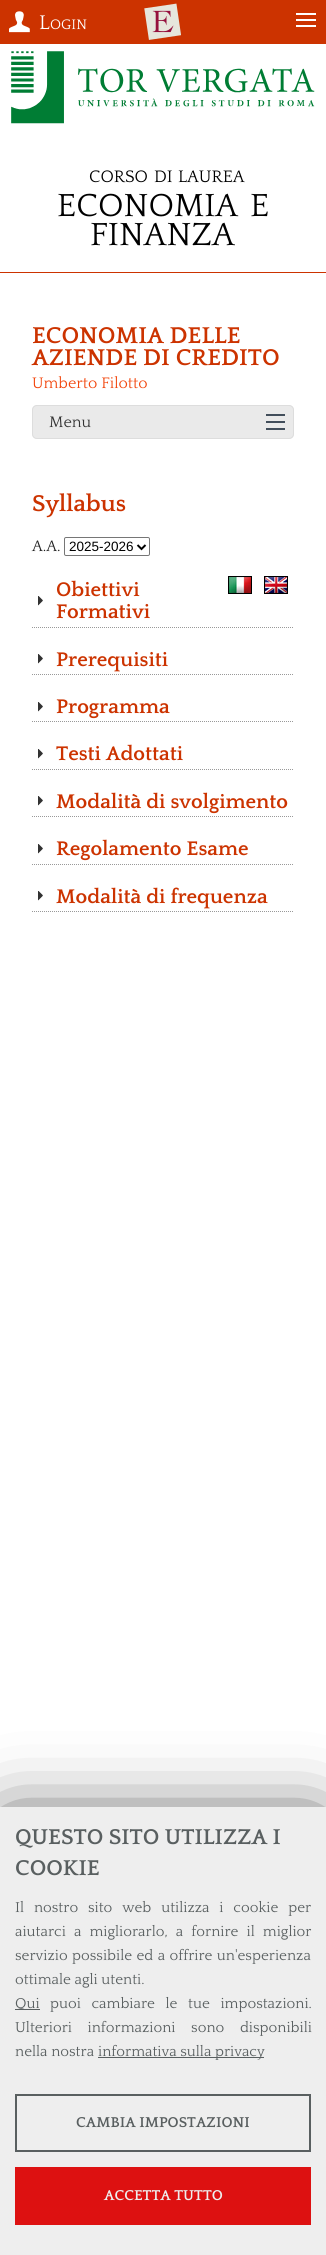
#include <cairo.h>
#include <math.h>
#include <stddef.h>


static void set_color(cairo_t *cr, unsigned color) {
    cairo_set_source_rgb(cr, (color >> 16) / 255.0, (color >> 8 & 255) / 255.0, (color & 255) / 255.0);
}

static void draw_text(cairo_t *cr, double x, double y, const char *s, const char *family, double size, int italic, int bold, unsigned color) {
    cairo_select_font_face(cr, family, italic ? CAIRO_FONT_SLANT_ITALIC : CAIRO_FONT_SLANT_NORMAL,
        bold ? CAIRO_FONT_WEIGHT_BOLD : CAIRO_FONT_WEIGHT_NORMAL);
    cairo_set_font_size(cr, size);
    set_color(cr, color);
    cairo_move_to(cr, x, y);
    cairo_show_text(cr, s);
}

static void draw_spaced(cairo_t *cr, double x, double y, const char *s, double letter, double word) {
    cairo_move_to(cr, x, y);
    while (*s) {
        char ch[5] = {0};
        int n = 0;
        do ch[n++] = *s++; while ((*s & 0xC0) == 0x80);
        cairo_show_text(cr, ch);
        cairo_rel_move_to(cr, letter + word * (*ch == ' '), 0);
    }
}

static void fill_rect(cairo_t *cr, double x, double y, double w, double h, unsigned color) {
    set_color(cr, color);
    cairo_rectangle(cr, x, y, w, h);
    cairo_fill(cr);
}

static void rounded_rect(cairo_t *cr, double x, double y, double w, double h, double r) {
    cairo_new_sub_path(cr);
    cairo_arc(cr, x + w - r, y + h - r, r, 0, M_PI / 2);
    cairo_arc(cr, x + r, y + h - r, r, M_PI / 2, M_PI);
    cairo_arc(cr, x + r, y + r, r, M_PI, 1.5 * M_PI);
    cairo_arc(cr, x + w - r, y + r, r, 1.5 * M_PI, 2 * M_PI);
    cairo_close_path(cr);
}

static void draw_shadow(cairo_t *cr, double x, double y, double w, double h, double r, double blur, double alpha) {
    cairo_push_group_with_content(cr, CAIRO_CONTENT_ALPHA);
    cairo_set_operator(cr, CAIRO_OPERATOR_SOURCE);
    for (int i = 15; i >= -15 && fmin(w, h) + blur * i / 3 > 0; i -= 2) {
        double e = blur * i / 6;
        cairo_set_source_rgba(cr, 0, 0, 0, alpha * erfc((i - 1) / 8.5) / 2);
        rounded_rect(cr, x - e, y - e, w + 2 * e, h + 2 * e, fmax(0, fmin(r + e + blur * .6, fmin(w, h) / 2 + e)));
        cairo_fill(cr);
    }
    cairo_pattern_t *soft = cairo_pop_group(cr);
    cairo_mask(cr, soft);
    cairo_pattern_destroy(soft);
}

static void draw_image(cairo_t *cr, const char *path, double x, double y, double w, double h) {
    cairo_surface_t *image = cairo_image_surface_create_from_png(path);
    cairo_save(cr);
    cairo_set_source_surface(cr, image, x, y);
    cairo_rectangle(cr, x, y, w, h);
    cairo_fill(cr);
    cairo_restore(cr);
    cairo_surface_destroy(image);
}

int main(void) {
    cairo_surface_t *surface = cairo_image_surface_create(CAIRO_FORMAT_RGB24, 326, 2255);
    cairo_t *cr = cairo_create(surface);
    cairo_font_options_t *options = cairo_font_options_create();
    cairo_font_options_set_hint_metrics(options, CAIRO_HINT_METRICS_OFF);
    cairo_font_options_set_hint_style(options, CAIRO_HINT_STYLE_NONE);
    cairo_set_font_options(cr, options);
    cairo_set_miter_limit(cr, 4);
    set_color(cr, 0xFFFFFF);
    cairo_paint(cr);
    fill_rect(cr, 0, 272, 326, 1, 0xCC3300);
    fill_rect(cr, 0, 0, 326, 44, 0xCC3300);
    draw_image(cr, "assets/img1.png", 9, 11, 21, 22);
    draw_text(cr, 39, 29, "L", "Quattrocento", 20.75, 0, 0, 0xFFFFFF);
    draw_text(cr, 50, 29, "OGIN", "Quattrocento", 14.5, 0, 0, 0xFFFFFF);
    draw_image(cr, "assets/img2.png", 144, 3, 37, 37);
    fill_rect(cr, 296, 13, 20, 2, 0xFFFFFF);
    fill_rect(cr, 296, 19, 20, 2, 0xFFFFFF);
    fill_rect(cr, 296, 25, 20, 2, 0xFFFFFF);
    draw_image(cr, "assets/img3.png", 11, 51, 304, 73);
    draw_text(cr, 89, 182, "CORSO", "Quattrocento", 17.5, 0, 0, 0x000000);
    draw_text(cr, 154, 182, "DI", "Quattrocento", 17.5, 0, 0, 0x000000);
    draw_text(cr, 178, 182, "LAUREA", "Quattrocento", 17.5, 0, 0, 0x000000);
    draw_text(cr, 57, 216, "ECONOMIA", "Quattrocento", 33.5, 0, 0, 0x000000);
    draw_text(cr, 250, 216, "E", "Quattrocento", 33.5, 0, 0, 0x000000);
    draw_text(cr, 90, 245, "FINANZA", "Quattrocento", 33.5, 0, 0, 0x000000);
    draw_text(cr, 32, 343, "ECONOMIA DELLE", "Quattrocento", 24, 0, 1, 0xCC3300);
    draw_text(cr, 32, 365, "AZIENDE DI CREDITO", "Quattrocento", 24, 0, 1, 0xCC3300);
    draw_text(cr, 32, 388, "Umberto Filotto", "Quattrocento", 16, 0, 0, 0xF2460D);
    set_color(cr, 0xEAEAEA);
    rounded_rect(cr, 32, 405, 262, 34, 5);
    cairo_fill(cr);
    draw_image(cr, "assets/img4.png", 266, 414, 19, 16);
    rounded_rect(cr, 32.5, 405.5, 261, 33, 4.5);
    set_color(cr, 0xDDDDDD);
    cairo_set_line_width(cr, 1);
    cairo_stroke(cr);
    draw_text(cr, 49, 427, "Menu", "Quattrocento", 16, 0, 0, 0x333333);
    draw_text(cr, 32, 511, "Syllabus", "Quattrocento", 24, 0, 1, 0xCC3300);
    draw_text(cr, 32, 551, "A.A.", "Quattrocento", 16, 0, 0, 0x222222);
    rounded_rect(cr, 64.5, 537.5, 85, 18, 1.5);
    set_color(cr, 0x767676);
    cairo_stroke(cr);
    cairo_new_path(cr);
    cairo_move_to(cr, 137.5, 545);
    cairo_line_to(cr, 141.5, 549);
    cairo_line_to(cr, 145.5, 545);
    set_color(cr, 0x000000);
    cairo_set_line_width(cr, 2);
    cairo_stroke(cr);
    draw_text(cr, 69, 551, "2025-2026", "Liberation Sans", 13.5, 0, 0, 0x000000);
    draw_image(cr, "assets/img5.png", 38, 596, 5, 10);
    cairo_new_path(cr);
    cairo_move_to(cr, 32, 627.5);
    cairo_line_to(cr, 294, 627.5);
    set_color(cr, 0x999999);
    cairo_set_line_width(cr, 1);
    cairo_set_dash(cr, (double[]){1, 1}, 2, 0);
    cairo_stroke(cr);
    draw_text(cr, 56, 596, "Obiettivi", "Quattrocento", 20.75, 0, 1, 0xCC3300);
    draw_text(cr, 56, 618, "Formativi", "Quattrocento", 20.75, 0, 1, 0xCC3300);
    draw_image(cr, "assets/img6.png", 229, 577, 22, 16);
    cairo_rectangle(cr, 228.5, 576.5, 23, 17);
    set_color(cr, 0x000000);
    cairo_set_dash(cr, NULL, 0, 0);
    cairo_stroke(cr);
    draw_image(cr, "assets/img7.png", 265, 577, 22, 16);
    cairo_rectangle(cr, 264.5, 576.5, 23, 17);
    cairo_stroke(cr);
    draw_image(cr, "assets/img5.png", 38, 654, 5, 10);
    cairo_new_path(cr);
    cairo_move_to(cr, 32, 674.5);
    cairo_line_to(cr, 294, 674.5);
    set_color(cr, 0x999999);
    cairo_set_dash(cr, (double[]){1, 1}, 2, 0);
    cairo_stroke(cr);
    draw_text(cr, 56, 666, "Prerequisiti", "Quattrocento", 20.75, 0, 1, 0xCC3300);
    draw_image(cr, "assets/img5.png", 38, 702, 5, 10);
    cairo_new_path(cr);
    cairo_move_to(cr, 32, 721.5);
    cairo_line_to(cr, 294, 721.5);
    set_color(cr, 0x999999);
    cairo_stroke(cr);
    draw_text(cr, 56, 713, "Programma", "Quattrocento", 20.75, 0, 1, 0xCC3300);
    draw_image(cr, "assets/img5.png", 38, 749, 5, 10);
    cairo_new_path(cr);
    cairo_move_to(cr, 32, 769.5);
    cairo_line_to(cr, 294, 769.5);
    set_color(cr, 0x999999);
    cairo_stroke(cr);
    draw_text(cr, 56, 760, "Testi Adottati", "Quattrocento", 20.75, 0, 1, 0xCC3300);
    draw_image(cr, "assets/img5.png", 38, 796, 5, 10);
    cairo_new_path(cr);
    cairo_move_to(cr, 32, 816.5);
    cairo_line_to(cr, 294, 816.5);
    set_color(cr, 0x999999);
    cairo_stroke(cr);
    draw_text(cr, 56, 808, "Modalità di svolgimento", "Quattrocento", 20.75, 0, 1, 0xCC3300);
    draw_image(cr, "assets/img5.png", 38, 844, 5, 10);
    cairo_new_path(cr);
    cairo_move_to(cr, 32, 864.5);
    cairo_line_to(cr, 294, 864.5);
    set_color(cr, 0x999999);
    cairo_stroke(cr);
    draw_text(cr, 56, 855, "Regolamento Esame", "Quattrocento", 20.75, 0, 1, 0xCC3300);
    draw_image(cr, "assets/img5.png", 38, 891, 5, 10);
    cairo_new_path(cr);
    cairo_move_to(cr, 32, 911.5);
    cairo_line_to(cr, 294, 911.5);
    set_color(cr, 0x999999);
    cairo_stroke(cr);
    draw_text(cr, 56, 903, "Modalità di frequenza", "Quattrocento", 20.75, 0, 1, 0xCC3300);
    set_color(cr, 0x000000);
    draw_shadow(cr, 8, 1831, 310, 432, 0, 40, 1);
    fill_rect(cr, 0, 1807, 326, 448, 0xEEEEEE);
    draw_text(cr, 15, 1844, "QUESTO SITO UTILIZZA I", "Quattrocento", 22.5, 0, 1, 0x595F60);
    draw_text(cr, 15, 1875, "COOKIE", "Quattrocento", 22.5, 0, 1, 0x595F60);
    cairo_select_font_face(cr, "Quattrocento", CAIRO_FONT_SLANT_NORMAL, CAIRO_FONT_WEIGHT_NORMAL);
    cairo_set_font_size(cr, 15);
    draw_spaced(cr, 15, 1912, "Il nostro sito web utilizza i cookie per", 0, 6.25);
    draw_spaced(cr, 15, 1936, "aiutarci a migliorarlo, a fornire il miglior", 0, 4.5);
    draw_spaced(cr, 15, 1960, "servizio possibile ed a offrire un'esperienza", 0, 0.75);
    draw_text(cr, 15, 1984, "ottimale agli utenti.", "Quattrocento", 15, 0, 0, 0x595F60);
    fill_rect(cr, 15, 2009, 25, 1, 0x595F60);
    draw_text(cr, 15, 2008, "Qui", "Quattrocento", 15, 0, 0, 0x595F60);
    draw_spaced(cr, 50, 2008, "puoi cambiare le tue impostazioni.", 0, 7);
    draw_spaced(cr, 15, 2032, "Ulteriori informazioni sono disponibili", 0, 12);
    draw_text(cr, 15, 2056, "nella nostra", "Quattrocento", 15, 0, 0, 0x595F60);
    fill_rect(cr, 98, 2057, 166, 1, 0x595F60);
    draw_text(cr, 98, 2056, "informativa sulla privacy", "Quattrocento", 15, 0, 0, 0x595F60);
    cairo_rectangle(cr, 16, 2095, 294, 56);
    cairo_set_line_width(cr, 2);
    cairo_set_dash(cr, NULL, 0, 0);
    cairo_stroke(cr);
    draw_text(cr, 76, 2127, "CAMBIA IMPOSTAZIONI", "Quattrocento", 15, 0, 1, 0x595F60);
    fill_rect(cr, 15, 2167, 296, 58, 0xDD1111);
    draw_text(cr, 104, 2200, "ACCETTA TUTTO", "Quattrocento", 15, 0, 1, 0xEEEEEE);
    cairo_surface_write_to_png(surface, "output.png");
    cairo_font_options_destroy(options);
    cairo_destroy(cr);
    cairo_surface_destroy(surface);
    return 0;
}
